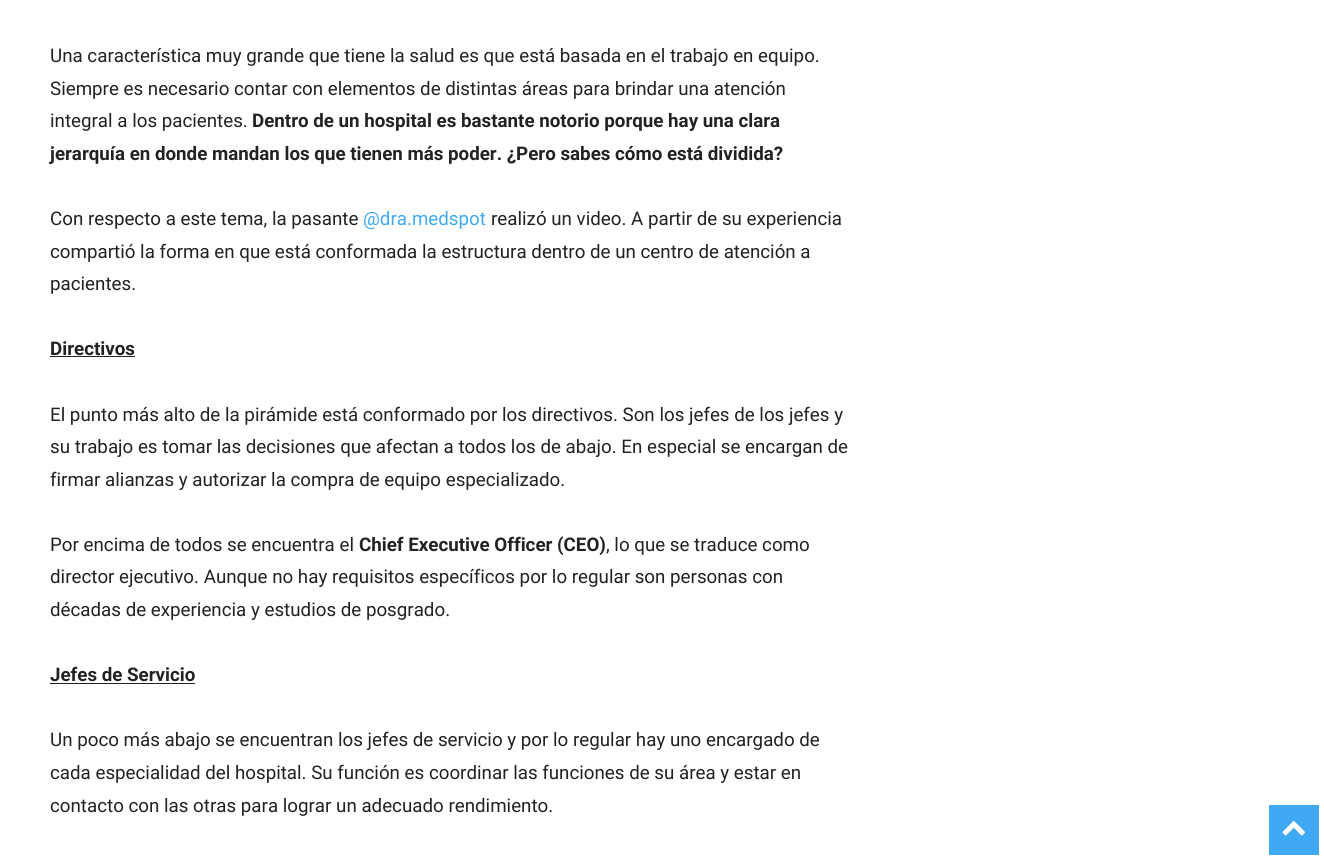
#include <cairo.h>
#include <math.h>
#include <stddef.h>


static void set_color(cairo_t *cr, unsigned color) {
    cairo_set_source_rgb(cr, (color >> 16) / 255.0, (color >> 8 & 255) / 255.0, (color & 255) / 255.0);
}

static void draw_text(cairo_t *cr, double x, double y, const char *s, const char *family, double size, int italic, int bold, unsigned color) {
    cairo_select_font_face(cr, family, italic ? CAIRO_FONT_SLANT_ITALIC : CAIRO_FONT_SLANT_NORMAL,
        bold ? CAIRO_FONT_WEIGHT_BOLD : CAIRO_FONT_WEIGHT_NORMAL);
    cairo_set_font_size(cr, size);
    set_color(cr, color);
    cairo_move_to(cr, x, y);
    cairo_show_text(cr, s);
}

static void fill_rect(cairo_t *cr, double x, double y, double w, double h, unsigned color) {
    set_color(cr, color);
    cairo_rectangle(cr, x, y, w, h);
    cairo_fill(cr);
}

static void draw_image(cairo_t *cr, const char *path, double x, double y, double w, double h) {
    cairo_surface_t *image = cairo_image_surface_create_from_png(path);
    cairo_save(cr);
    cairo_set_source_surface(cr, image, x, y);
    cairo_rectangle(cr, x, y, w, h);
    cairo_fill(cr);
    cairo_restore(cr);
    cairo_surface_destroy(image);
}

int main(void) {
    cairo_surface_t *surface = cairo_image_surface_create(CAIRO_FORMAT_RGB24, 1324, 859);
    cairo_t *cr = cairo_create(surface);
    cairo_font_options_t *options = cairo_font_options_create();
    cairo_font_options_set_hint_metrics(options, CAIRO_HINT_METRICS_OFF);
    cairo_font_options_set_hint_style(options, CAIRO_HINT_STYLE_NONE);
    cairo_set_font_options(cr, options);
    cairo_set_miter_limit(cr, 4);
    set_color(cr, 0xFFFFFF);
    cairo_paint(cr);
    draw_text(cr, 50, 62, "Una característica muy grande que tiene la salud es que está basada en el trabajo en equipo.", "Roboto", 18.75, 0, 0, 0x222222);
    draw_text(cr, 50, 95, "Siempre es necesario contar con elementos de distintas áreas para brindar una atención", "Roboto", 18.75, 0, 0, 0x222222);
    draw_text(cr, 50, 127, "integral a los pacientes.", "Roboto", 18.75, 0, 0, 0x222222);
    draw_text(cr, 252, 127, "Dentro de un hospital es bastante notorio porque hay una clara", "Roboto", 18.75, 0, 1, 0x222222);
    draw_text(cr, 50, 160, "jerarquía en donde mandan los que tienen más poder. ¿Pero sabes cómo está dividida?", "Roboto", 18.75, 0, 1, 0x222222);
    draw_text(cr, 50, 225, "Con respecto a este tema, la pasante", "Roboto", 18.75, 0, 0, 0x222222);
    draw_text(cr, 363, 225, "@dra.medspot", "Roboto", 18.75, 0, 0, 0x3FA9F5);
    draw_text(cr, 491, 225, "realizó un video. A partir de su experiencia", "Roboto", 18.75, 0, 0, 0x222222);
    draw_text(cr, 50, 258, "compartió la forma en que está conformada la estructura dentro de un centro de atención a", "Roboto", 18.75, 0, 0, 0x222222);
    draw_text(cr, 50, 290, "pacientes.", "Roboto", 18.75, 0, 0, 0x222222);
    draw_text(cr, 50, 355, "Directivos", "Roboto", 18.75, 0, 1, 0x222222);
    fill_rect(cr, 50, 356, 85, 1, 0x222222);
    draw_text(cr, 50, 421, "El punto más alto de la pirámide está conformado por los directivos. Son los jefes de los jefes y", "Roboto", 18.75, 0, 0, 0x222222);
    draw_text(cr, 50, 453, "su trabajo es tomar las decisiones que afectan a todos los de abajo. En especial se encargan de", "Roboto", 18.75, 0, 0, 0x222222);
    draw_text(cr, 50, 486, "firmar alianzas y autorizar la compra de equipo especializado.", "Roboto", 18.75, 0, 0, 0x222222);
    draw_text(cr, 50, 551, "Por encima de todos se encuentra el", "Roboto", 18.75, 0, 0, 0x222222);
    draw_text(cr, 359, 551, "Chief Executive Officer (CEO)", "Roboto", 18.75, 0, 1, 0x222222);
    draw_text(cr, 606, 551, ", lo que se traduce como", "Roboto", 18.75, 0, 0, 0x222222);
    draw_text(cr, 50, 583, "director ejecutivo. Aunque no hay requisitos específicos por lo regular son personas con", "Roboto", 18.75, 0, 0, 0x222222);
    draw_text(cr, 50, 616, "décadas de experiencia y estudios de posgrado.", "Roboto", 18.75, 0, 0, 0x222222);
    draw_text(cr, 50, 681, "Jefes de Servicio", "Roboto", 18.75, 0, 1, 0x222222);
    fill_rect(cr, 50, 683, 145, 1, 0x222222);
    draw_text(cr, 50, 746, "Un poco más abajo se encuentran los jefes de servicio y por lo regular hay uno encargado de", "Roboto", 18.75, 0, 0, 0x222222);
    draw_text(cr, 50, 779, "cada especialidad del hospital. Su función es coordinar las funciones de su área y estar en", "Roboto", 18.75, 0, 0, 0x222222);
    draw_text(cr, 50, 812, "contacto con las otras para lograr un adecuado rendimiento.", "Roboto", 18.75, 0, 0, 0x222222);
    fill_rect(cr, 1269, 805, 50, 50, 0x3FA9F5);
    draw_image(cr, "assets/img1.png", 1282, 821, 23, 15);
    cairo_surface_write_to_png(surface, "output.png");
    cairo_font_options_destroy(options);
    cairo_destroy(cr);
    cairo_surface_destroy(surface);
    return 0;
}
